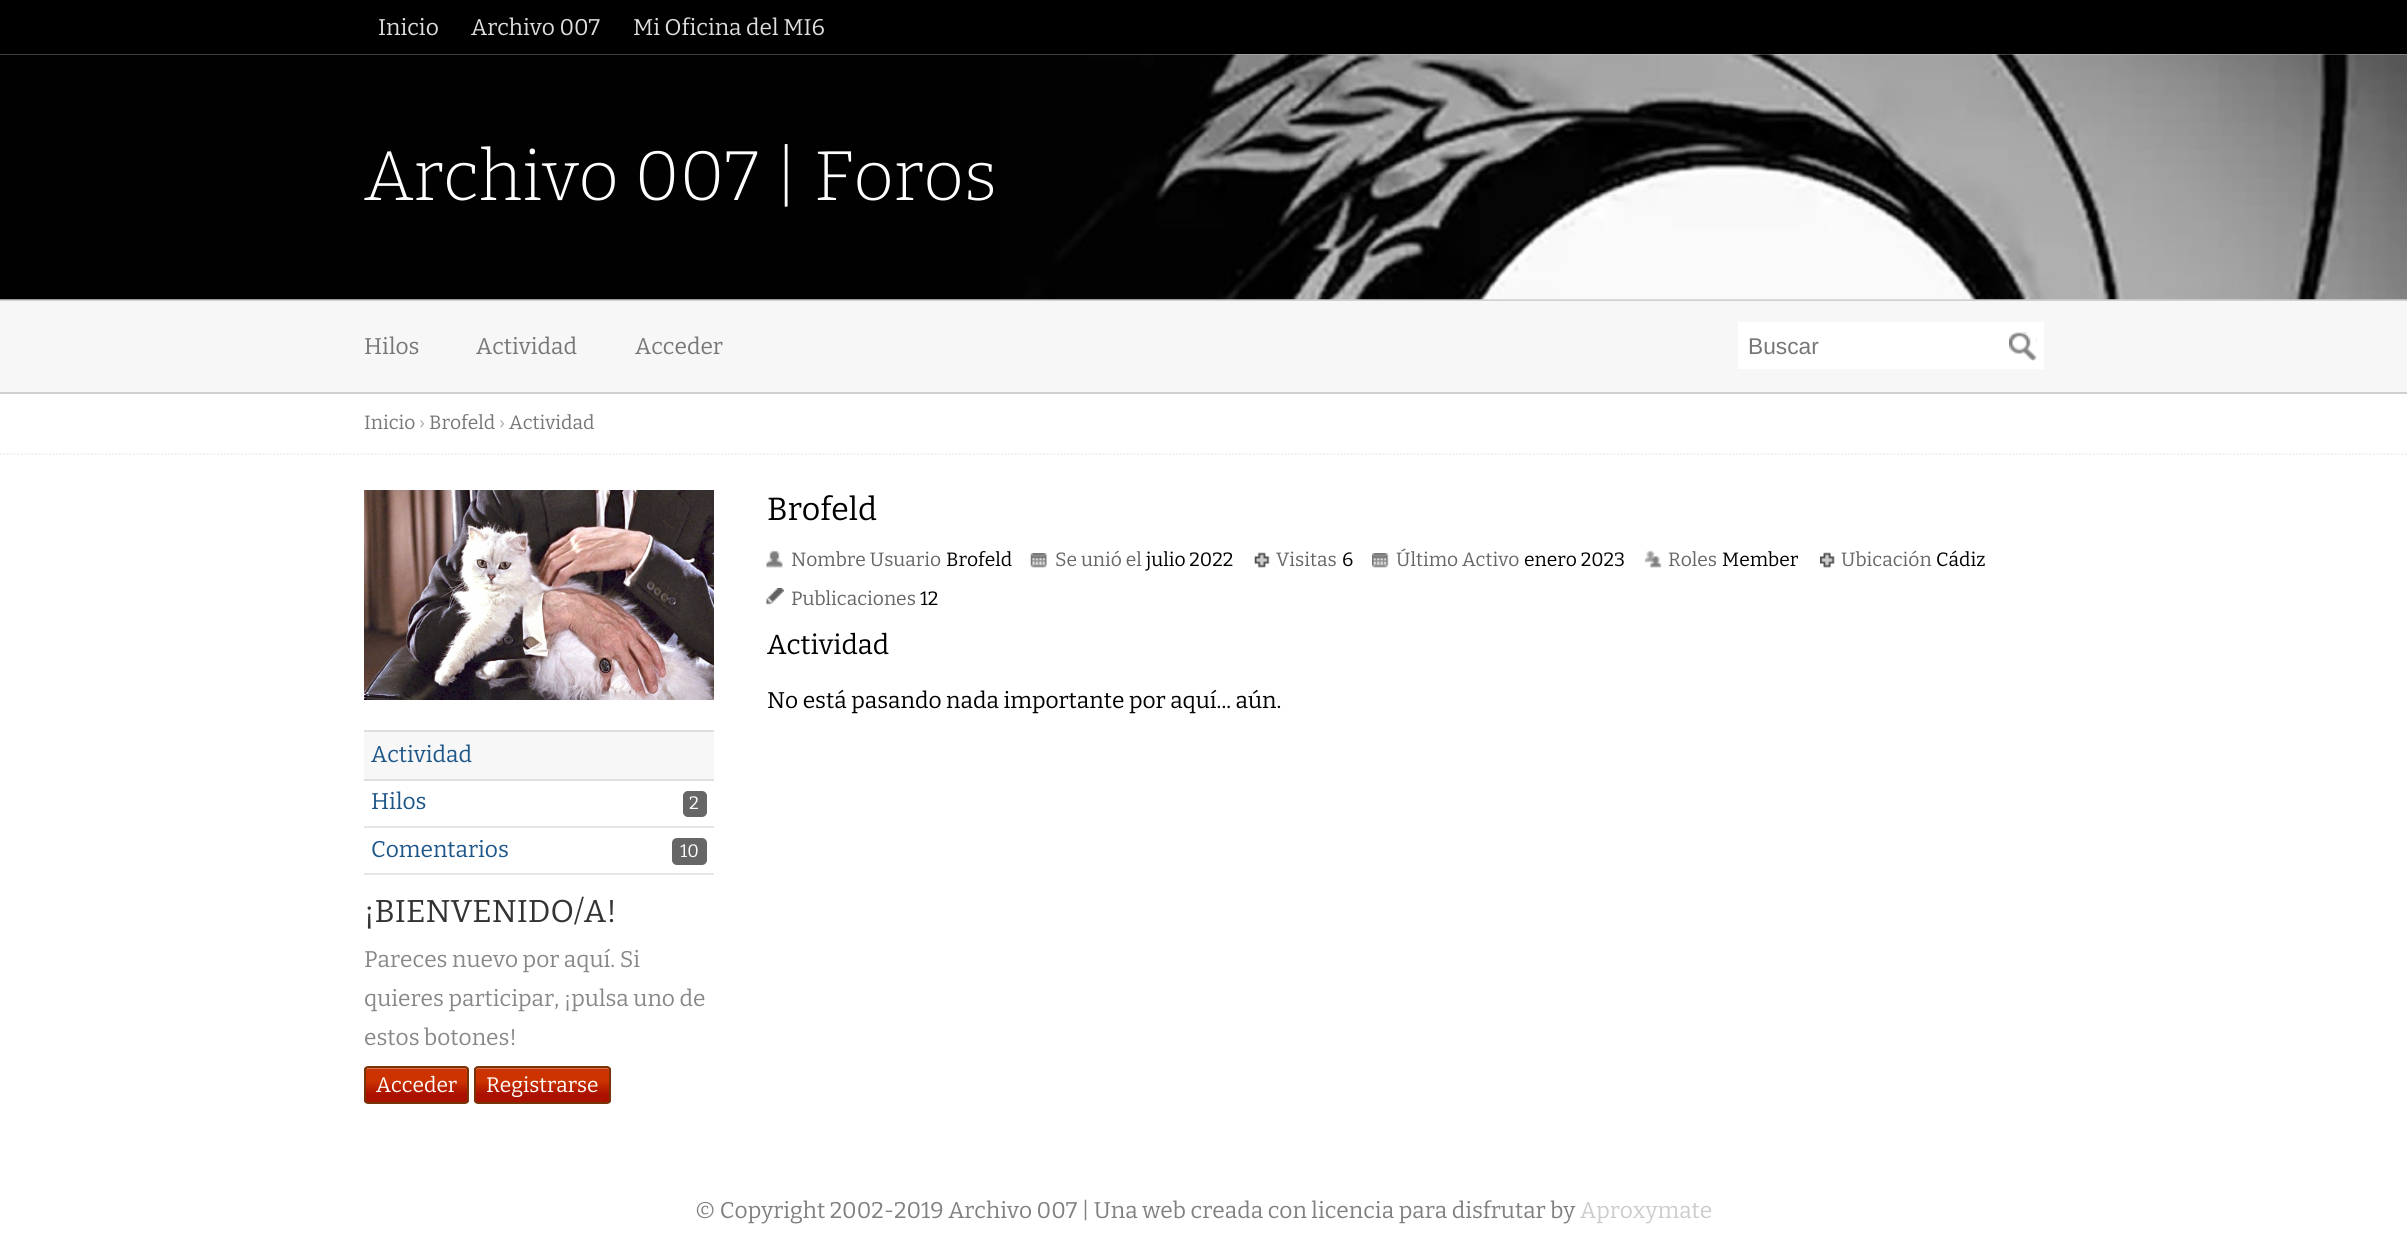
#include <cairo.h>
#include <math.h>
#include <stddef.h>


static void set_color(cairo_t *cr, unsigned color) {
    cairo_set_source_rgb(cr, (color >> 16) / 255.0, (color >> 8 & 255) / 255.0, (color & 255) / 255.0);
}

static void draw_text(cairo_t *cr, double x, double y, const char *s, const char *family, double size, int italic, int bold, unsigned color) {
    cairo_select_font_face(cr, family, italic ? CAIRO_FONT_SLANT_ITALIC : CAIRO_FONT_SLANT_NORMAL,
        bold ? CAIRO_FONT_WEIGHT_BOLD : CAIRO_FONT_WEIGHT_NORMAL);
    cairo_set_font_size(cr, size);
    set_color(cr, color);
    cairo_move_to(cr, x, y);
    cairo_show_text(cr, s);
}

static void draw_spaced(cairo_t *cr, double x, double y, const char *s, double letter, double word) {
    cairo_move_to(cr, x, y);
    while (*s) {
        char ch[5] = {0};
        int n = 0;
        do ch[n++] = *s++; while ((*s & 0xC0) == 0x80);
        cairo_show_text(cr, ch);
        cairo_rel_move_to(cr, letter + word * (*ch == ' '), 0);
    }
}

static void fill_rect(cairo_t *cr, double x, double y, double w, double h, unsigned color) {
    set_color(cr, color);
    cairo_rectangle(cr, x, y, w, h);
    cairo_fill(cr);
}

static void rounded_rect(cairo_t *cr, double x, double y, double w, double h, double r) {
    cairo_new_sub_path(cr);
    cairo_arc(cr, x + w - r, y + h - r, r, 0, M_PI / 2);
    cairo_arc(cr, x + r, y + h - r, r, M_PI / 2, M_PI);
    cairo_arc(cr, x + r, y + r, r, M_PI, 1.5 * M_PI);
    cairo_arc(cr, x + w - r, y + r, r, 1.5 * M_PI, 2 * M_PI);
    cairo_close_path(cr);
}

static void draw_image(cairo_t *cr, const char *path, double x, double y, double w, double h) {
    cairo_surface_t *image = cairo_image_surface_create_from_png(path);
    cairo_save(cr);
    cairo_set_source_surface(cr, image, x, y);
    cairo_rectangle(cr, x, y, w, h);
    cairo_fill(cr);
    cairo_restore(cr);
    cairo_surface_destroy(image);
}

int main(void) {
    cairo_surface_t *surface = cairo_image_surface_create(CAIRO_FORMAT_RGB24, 2407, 1242);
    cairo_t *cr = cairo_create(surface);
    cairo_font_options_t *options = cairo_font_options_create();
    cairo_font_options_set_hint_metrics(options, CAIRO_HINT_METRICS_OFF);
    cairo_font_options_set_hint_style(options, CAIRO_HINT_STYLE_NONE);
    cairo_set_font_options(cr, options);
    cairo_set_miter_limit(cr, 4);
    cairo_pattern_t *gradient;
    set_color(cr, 0xFFFFFF);
    cairo_paint(cr);
    fill_rect(cr, 0, 0, 2407, 54, 0x000000);
    draw_text(cr, 378, 35, "Inicio", "Bitter", 22.75, 0, 0, 0xDDDDDD);
    draw_text(cr, 471, 35, "Archivo 007", "Bitter", 22.75, 0, 0, 0xDDDDDD);
    draw_text(cr, 633, 35, "Mi Oficina del MI6", "Bitter", 22.75, 0, 0, 0xDDDDDD);
    fill_rect(cr, 0, 299, 2407, 2, 0xD0D0D0);
    draw_image(cr, "assets/img1.png", 0, 54, 2407, 246);
    cairo_select_font_face(cr, "Bitter Light", CAIRO_FONT_SLANT_NORMAL, CAIRO_FONT_WEIGHT_NORMAL);
    cairo_set_font_size(cr, 70);
    set_color(cr, 0xFFFFFF);
    draw_spaced(cr, 364, 200, "Archivo 007 | Foros", 0, 1);
    fill_rect(cr, 0, 301, 2407, 91, 0xF7F7F7);
    fill_rect(cr, 0, 392, 2407, 2, 0xD0D0D0);
    draw_text(cr, 364, 354, "Hilos", "Bitter", 22.75, 0, 0, 0x777777);
    draw_text(cr, 476, 354, "Actividad", "Bitter", 22.75, 0, 0, 0x777777);
    draw_text(cr, 635, 354, "Acceder", "Bitter", 22.75, 0, 0, 0x777777);
    fill_rect(cr, 1738, 322, 306, 47, 0xFFFFFF);
    draw_text(cr, 1748, 354, "Buscar", "Liberation Sans", 22.75, 0, 0, 0x777777);
    draw_image(cr, "assets/img2.png", 2009, 332, 28, 29);
    cairo_set_source_rgba(cr, 1, 1, 1, 0.3);
    cairo_new_path(cr);
    cairo_move_to(cr, 2012, 334);
    cairo_line_to(cr, 2034, 334);
    cairo_curve_to(cr, 2035, 334, 2037, 336, 2037, 338);
    cairo_curve_to(cr, 2037, 333, 2034, 333, 2029.5, 333);
    cairo_line_to(cr, 2016.5, 333);
    cairo_curve_to(cr, 2012, 333, 2009, 333, 2009, 338);
    cairo_curve_to(cr, 2009, 336, 2011, 334, 2012, 334);
    cairo_close_path(cr);
    cairo_fill(cr);
    cairo_new_path(cr);
    cairo_move_to(cr, 0, 454);
    cairo_line_to(cr, 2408, 454);
    set_color(cr, 0xEEEEEE);
    cairo_set_line_width(cr, 1.8);
    cairo_set_dash(cr, (double[]){1.75, 1.75}, 2, 0);
    cairo_stroke(cr);
    draw_text(cr, 364, 429, "Inicio", "Bitter", 19.25, 0, 0, 0x777777);
    draw_text(cr, 419, 429, "›", "Bitter", 19.25, 0, 0, 0xAAAAAA);
    draw_text(cr, 429, 429, "Brofeld", "Bitter", 19.25, 0, 0, 0x777777);
    draw_text(cr, 499, 429, "›", "Bitter", 19.25, 0, 0, 0xAAAAAA);
    draw_text(cr, 509, 429, "Actividad", "Bitter", 19.25, 0, 0, 0x777777);
    draw_text(cr, 767, 520, "Brofeld", "Bitter", 32, 0, 0, 0x000000);
    draw_image(cr, "assets/img3.png", 766, 550, 17, 18);
    draw_text(cr, 791, 566, "Nombre Usuario", "Bitter", 19.25, 0, 0, 0x666666);
    draw_text(cr, 946, 566, "Brofeld", "Bitter", 19.25, 0, 0, 0x000000);
    draw_image(cr, "assets/img4.png", 1030, 553, 17, 15);
    draw_text(cr, 1055, 566, "Se unió el", "Bitter", 19.25, 0, 0, 0x666666);
    draw_text(cr, 1146, 566, "julio 2022", "Bitter", 19.25, 0, 0, 0x000000);
    draw_image(cr, "assets/img5.png", 1254, 552, 16, 16);
    draw_text(cr, 1276, 566, "Visitas", "Bitter", 19.25, 0, 0, 0x666666);
    draw_text(cr, 1342, 566, "6", "Bitter", 19.25, 0, 0, 0x000000);
    draw_image(cr, "assets/img6.png", 1372, 553, 17, 15);
    draw_text(cr, 1396, 566, "Último Activo", "Bitter", 19.25, 0, 0, 0x666666);
    draw_text(cr, 1524, 566, "enero 2023", "Bitter", 19.25, 0, 0, 0x000000);
    draw_image(cr, "assets/img7.png", 1645, 550, 17, 18);
    draw_text(cr, 1668, 566, "Roles", "Bitter", 19.25, 0, 0, 0x666666);
    draw_text(cr, 1722, 566, "Member", "Bitter", 19.25, 0, 0, 0x000000);
    draw_image(cr, "assets/img8.png", 1820, 552, 15, 16);
    draw_text(cr, 1841, 566, "Ubicación", "Bitter", 19.25, 0, 0, 0x666666);
    draw_text(cr, 1936, 566, "Cádiz", "Bitter", 19.25, 0, 0, 0x000000);
    draw_image(cr, "assets/img9.png", 766, 588, 18, 17);
    draw_text(cr, 791, 605, "Publicaciones", "Bitter", 19.25, 0, 0, 0x666666);
    draw_text(cr, 920, 605, "12", "Bitter", 19.25, 0, 0, 0x000000);
    draw_text(cr, 767, 654, "Actividad", "Bitter", 27.5, 0, 0, 0x000000);
    draw_text(cr, 767, 708, "No está pasando nada importante por aquí... aún.", "Bitter", 22.75, 0, 0, 0x000000);
    draw_image(cr, "assets/img10.png", 364, 490, 350, 210);
    fill_rect(cr, 364, 732, 350, 47, 0xF7F7F7);
    fill_rect(cr, 364, 730, 350, 2, 0xDEDEDE);
    fill_rect(cr, 364, 779, 350, 2, 0xDEDEDE);
    draw_text(cr, 371, 762, "Actividad", "Bitter", 22.75, 0, 0, 0x1D5689);
    fill_rect(cr, 364, 826, 350, 2, 0xE6E6E6);
    draw_text(cr, 371, 809, "Hilos", "Bitter", 22.75, 0, 0, 0x1D5689);
    set_color(cr, 0x666666);
    rounded_rect(cr, 683, 791, 24, 26, 5);
    cairo_fill(cr);
    draw_text(cr, 689, 809, "2", "Bitter", 18, 0, 0, 0xFFFFFF);
    fill_rect(cr, 364, 873, 350, 2, 0xE6E6E6);
    draw_text(cr, 371, 857, "Comentarios", "Bitter", 22.75, 0, 0, 0x1D5689);
    set_color(cr, 0x666666);
    rounded_rect(cr, 672, 838, 35, 27, 5);
    cairo_fill(cr);
    draw_text(cr, 680, 857, "10", "Bitter", 18, 0, 0, 0xFFFFFF);
    draw_text(cr, 364, 922, "¡BIENVENIDO/A!", "Bitter", 31.5, 0, 0, 0x333333);
    draw_text(cr, 364, 967, "Pareces nuevo por aquí. Si", "Bitter", 22.75, 0, 0, 0x888888);
    draw_text(cr, 364, 1006, "quieres participar, ¡pulsa uno de", "Bitter", 22.75, 0, 0, 0x888888);
    draw_text(cr, 364, 1045, "estos botones!", "Bitter", 22.75, 0, 0, 0x888888);
    cairo_save(cr);
    rounded_rect(cr, 364, 1066, 105, 38, 4);
    cairo_clip(cr);
    gradient = cairo_pattern_create_linear(366, 1103, 366, 1068);
    cairo_pattern_add_color_stop_rgba(gradient, 0.25, 0.667, 0.067, 0, 1);
    cairo_pattern_add_color_stop_rgba(gradient, 0.63, 0.8, 0.2, 0, 1);
    cairo_set_source(cr, gradient);
    cairo_pattern_destroy(gradient);
    cairo_rectangle(cr, 364, 1068, 105, 35);
    cairo_fill(cr);
    cairo_restore(cr);
    cairo_set_source_rgba(cr, 1, 1, 1, 0.3);
    cairo_new_path(cr);
    cairo_move_to(cr, 368, 1069);
    cairo_line_to(cr, 466, 1069);
    cairo_line_to(cr, 467, 1071);
    cairo_curve_to(cr, 467, 1070, 467, 1068, 465, 1068);
    cairo_line_to(cr, 384, 1068);
    cairo_curve_to(cr, 383, 1068, 366, 1063, 366, 1071);
    cairo_curve_to(cr, 366, 1070, 367, 1069, 368, 1069);
    cairo_close_path(cr);
    cairo_fill(cr);
    rounded_rect(cr, 365, 1067, 103, 36, 3);
    set_color(cr, 0x763407);
    cairo_set_line_width(cr, 2);
    cairo_set_dash(cr, NULL, 0, 0);
    cairo_stroke(cr);
    draw_text(cr, 376, 1092, "Acceder", "Bitter", 21, 0, 0, 0xFFFFFF);
    cairo_save(cr);
    rounded_rect(cr, 474, 1066, 137, 38, 4);
    cairo_clip(cr);
    gradient = cairo_pattern_create_linear(476, 1103, 476, 1068);
    cairo_pattern_add_color_stop_rgba(gradient, 0.25, 0.667, 0.067, 0, 1);
    cairo_pattern_add_color_stop_rgba(gradient, 0.63, 0.8, 0.2, 0, 1);
    cairo_set_source(cr, gradient);
    cairo_pattern_destroy(gradient);
    cairo_rectangle(cr, 474, 1068, 137, 35);
    cairo_fill(cr);
    cairo_restore(cr);
    set_color(cr, 0xDB704D);
    cairo_new_path(cr);
    cairo_move_to(cr, 478, 1069);
    cairo_line_to(cr, 607, 1069);
    cairo_curve_to(cr, 608, 1069, 609, 1070, 609, 1071);
    cairo_curve_to(cr, 609, 1070, 609, 1068, 607, 1068);
    cairo_line_to(cr, 478, 1068);
    cairo_curve_to(cr, 476, 1068, 476, 1070, 476, 1071);
    cairo_curve_to(cr, 476, 1070, 477, 1069, 478, 1069);
    cairo_close_path(cr);
    cairo_fill(cr);
    rounded_rect(cr, 475, 1067, 135, 36, 3);
    set_color(cr, 0x763407);
    cairo_stroke(cr);
    draw_text(cr, 486, 1092, "Registrarse", "Bitter", 21, 0, 0, 0xFFFFFF);
    draw_text(cr, 695, 1218, "© Copyright 2002-2019 Archivo 007 | Una web creada con licencia para disfrutar by", "Bitter", 22.75, 0, 0, 0x808080);
    draw_text(cr, 1580, 1218, "Aproxymate", "Bitter", 22.75, 0, 0, 0xCCCCCC);
    cairo_surface_write_to_png(surface, "output.png");
    cairo_font_options_destroy(options);
    cairo_destroy(cr);
    cairo_surface_destroy(surface);
    return 0;
}
